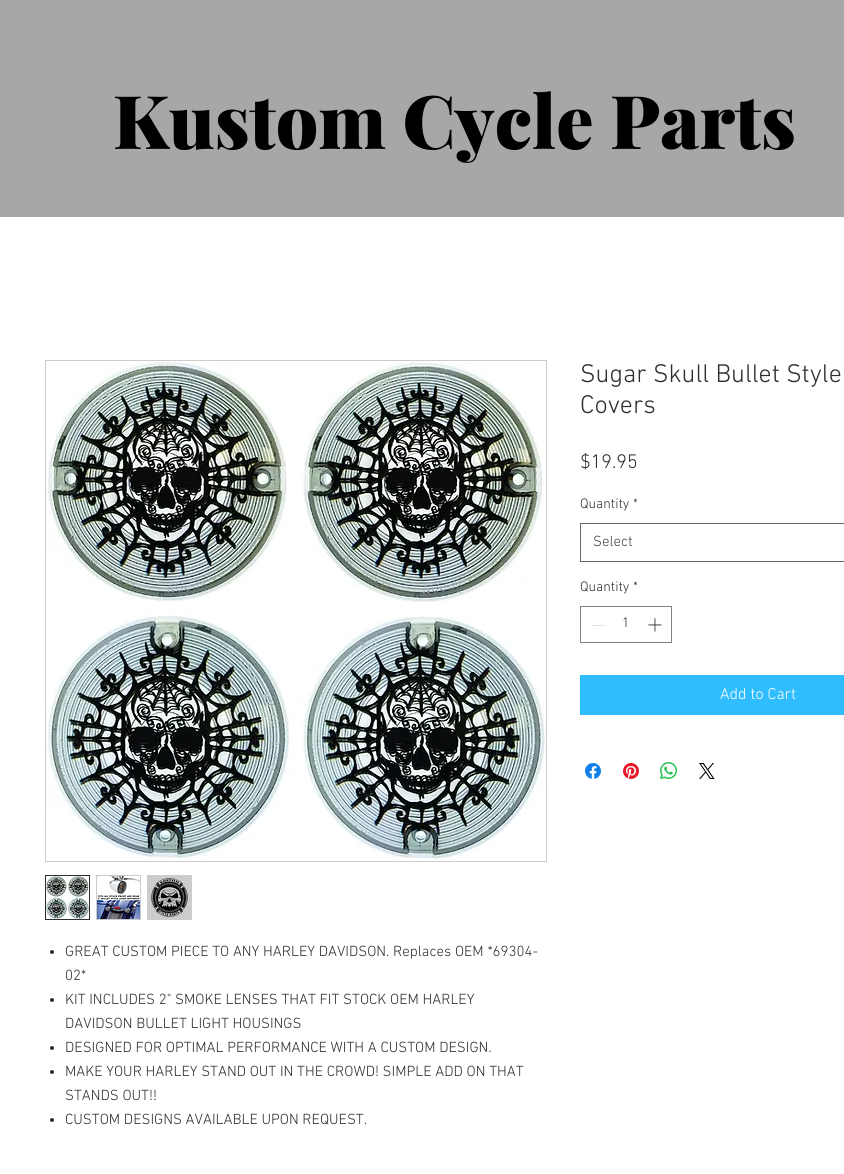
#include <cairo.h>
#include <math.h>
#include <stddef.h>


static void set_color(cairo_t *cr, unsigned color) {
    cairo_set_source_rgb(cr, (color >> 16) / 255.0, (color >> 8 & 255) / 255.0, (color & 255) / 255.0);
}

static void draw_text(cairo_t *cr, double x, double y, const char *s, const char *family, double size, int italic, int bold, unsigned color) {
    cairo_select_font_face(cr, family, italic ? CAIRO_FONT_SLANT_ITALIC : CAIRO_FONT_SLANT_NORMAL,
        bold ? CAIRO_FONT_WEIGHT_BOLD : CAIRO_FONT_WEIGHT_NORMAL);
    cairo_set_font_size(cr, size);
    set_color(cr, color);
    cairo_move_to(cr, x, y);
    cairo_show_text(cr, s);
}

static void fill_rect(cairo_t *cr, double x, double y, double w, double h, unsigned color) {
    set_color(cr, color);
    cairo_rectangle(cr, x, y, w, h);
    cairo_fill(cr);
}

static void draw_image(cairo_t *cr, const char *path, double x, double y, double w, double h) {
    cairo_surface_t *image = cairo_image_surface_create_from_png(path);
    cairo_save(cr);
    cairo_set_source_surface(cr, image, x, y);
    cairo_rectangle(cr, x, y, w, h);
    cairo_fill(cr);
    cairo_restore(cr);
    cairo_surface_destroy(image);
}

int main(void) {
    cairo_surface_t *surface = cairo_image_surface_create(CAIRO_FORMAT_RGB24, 844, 1174);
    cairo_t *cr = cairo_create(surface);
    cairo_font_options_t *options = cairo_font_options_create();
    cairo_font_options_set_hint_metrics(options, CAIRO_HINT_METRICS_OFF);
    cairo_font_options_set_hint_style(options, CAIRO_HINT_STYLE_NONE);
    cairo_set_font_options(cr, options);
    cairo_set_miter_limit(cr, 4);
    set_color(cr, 0xA7A7A7);
    cairo_paint(cr);
    draw_text(cr, 113, 149, "Kustom Cycle Parts", "Playfair Display Black", 74, 0, 0, 0x000000);
    fill_rect(cr, 0, 217, 844, 957, 0xFFFFFF);
    draw_text(cr, 580, 382, "Sugar Skull Bullet Style", "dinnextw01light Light", 26, 0, 0, 0x2F2E2E);
    draw_text(cr, 580, 413, "Covers", "dinnextw01light Light", 26, 0, 0, 0x2F2E2E);
    draw_text(cr, 580, 468, "$19.95", "dinnextw01light Light", 20, 0, 0, 0x2F2E2E);
    draw_text(cr, 580, 508, "Quantity", "dinnextw01light Light", 14, 0, 0, 0x2F2E2E);
    draw_text(cr, 633, 508, "*", "dinnextw01light Light", 14, 0, 0, 0x2F2E2E);
    cairo_rectangle(cr, 580.5, 523.5, 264, 38);
    set_color(cr, 0x666666);
    cairo_set_line_width(cr, 1);
    cairo_stroke(cr);
    draw_text(cr, 593, 546, "Select", "dinnextw01light Light", 15, 0, 0, 0x444444);
    draw_text(cr, 580, 591, "Quantity", "dinnextw01light Light", 14, 0, 0, 0x2F2E2E);
    draw_text(cr, 633, 591, "*", "dinnextw01light Light", 14, 0, 0, 0x2F2E2E);
    cairo_rectangle(cr, 580.5, 606.5, 91, 36);
    set_color(cr, 0x828282);
    cairo_stroke(cr);
    fill_rect(cr, 592, 625, 13, 1, 0xE3E3E3);
    draw_text(cr, 622, 627, "1", "dinnextw01light Light", 14, 0, 0, 0x2F2E2E);
    draw_image(cr, "assets/img1.png", 648, 618, 14, 14);
    fill_rect(cr, 580, 675, 264, 40, 0x30BDFF);
    draw_text(cr, 720, 699, "Add to Cart", "dinnextw01light Light", 16, 0, 0, 0xFFFFFF);
    draw_image(cr, "assets/img2.png", 585, 763, 16, 16);
    draw_image(cr, "assets/img3.png", 623, 763, 16, 16);
    draw_image(cr, "assets/img4.png", 660, 762, 17, 17);
    draw_image(cr, "assets/img5.png", 699, 763, 16, 16);
    cairo_rectangle(cr, 45.5, 360.5, 501, 501);
    set_color(cr, 0xCCCCCC);
    cairo_stroke(cr);
    draw_image(cr, "assets/img6.png", 46, 361, 499, 498);
    cairo_rectangle(cr, 45.5, 875.5, 44, 44);
    set_color(cr, 0x2F2E2E);
    cairo_stroke(cr);
    draw_image(cr, "assets/img7.png", 46, 876, 43, 43);
    fill_rect(cr, 96, 875, 45, 45, 0xCCCCCC);
    draw_image(cr, "assets/img8.png", 97, 876, 43, 43);
    fill_rect(cr, 147, 875, 45, 45, 0xCCCCCC);
    draw_image(cr, "assets/img9.png", 151, 878, 37, 39);
    set_color(cr, 0x2F2E2E);
    cairo_arc(cr, 52, 952, 2, 0, 2 * M_PI);
    cairo_fill(cr);
    draw_text(cr, 65, 956, "GREAT CUSTOM PIECE TO ANY HARLEY DAVIDSON. Replaces OEM *69304-", "dinnextw01light Light", 15, 0, 0, 0x2F2E2E);
    draw_text(cr, 65, 980, "02*", "dinnextw01light Light", 15, 0, 0, 0x2F2E2E);
    cairo_new_path(cr);
    cairo_arc(cr, 52, 1000, 2, 0, 2 * M_PI);
    cairo_fill(cr);
    draw_text(cr, 65, 1004, "KIT INCLUDES 2\" SMOKE LENSES THAT FIT STOCK OEM HARLEY", "dinnextw01light Light", 15, 0, 0, 0x2F2E2E);
    draw_text(cr, 65, 1028, "DAVIDSON BULLET LIGHT HOUSINGS", "dinnextw01light Light", 15, 0, 0, 0x2F2E2E);
    cairo_new_path(cr);
    cairo_arc(cr, 52, 1048, 2, 0, 2 * M_PI);
    cairo_fill(cr);
    draw_text(cr, 65, 1052, "DESIGNED FOR OPTIMAL PERFORMANCE WITH A CUSTOM DESIGN.", "dinnextw01light Light", 15, 0, 0, 0x2F2E2E);
    cairo_new_path(cr);
    cairo_arc(cr, 52, 1072, 2, 0, 2 * M_PI);
    cairo_fill(cr);
    draw_text(cr, 65, 1076, "MAKE YOUR HARLEY STAND OUT IN THE CROWD! SIMPLE ADD ON THAT", "dinnextw01light Light", 15, 0, 0, 0x2F2E2E);
    draw_text(cr, 65, 1100, "STANDS OUT!!", "dinnextw01light Light", 15, 0, 0, 0x2F2E2E);
    cairo_new_path(cr);
    cairo_arc(cr, 52, 1120, 2, 0, 2 * M_PI);
    cairo_fill(cr);
    draw_text(cr, 65, 1124, "CUSTOM DESIGNS AVAILABLE UPON REQUEST.", "dinnextw01light Light", 15, 0, 0, 0x2F2E2E);
    cairo_surface_write_to_png(surface, "output.png");
    cairo_font_options_destroy(options);
    cairo_destroy(cr);
    cairo_surface_destroy(surface);
    return 0;
}
